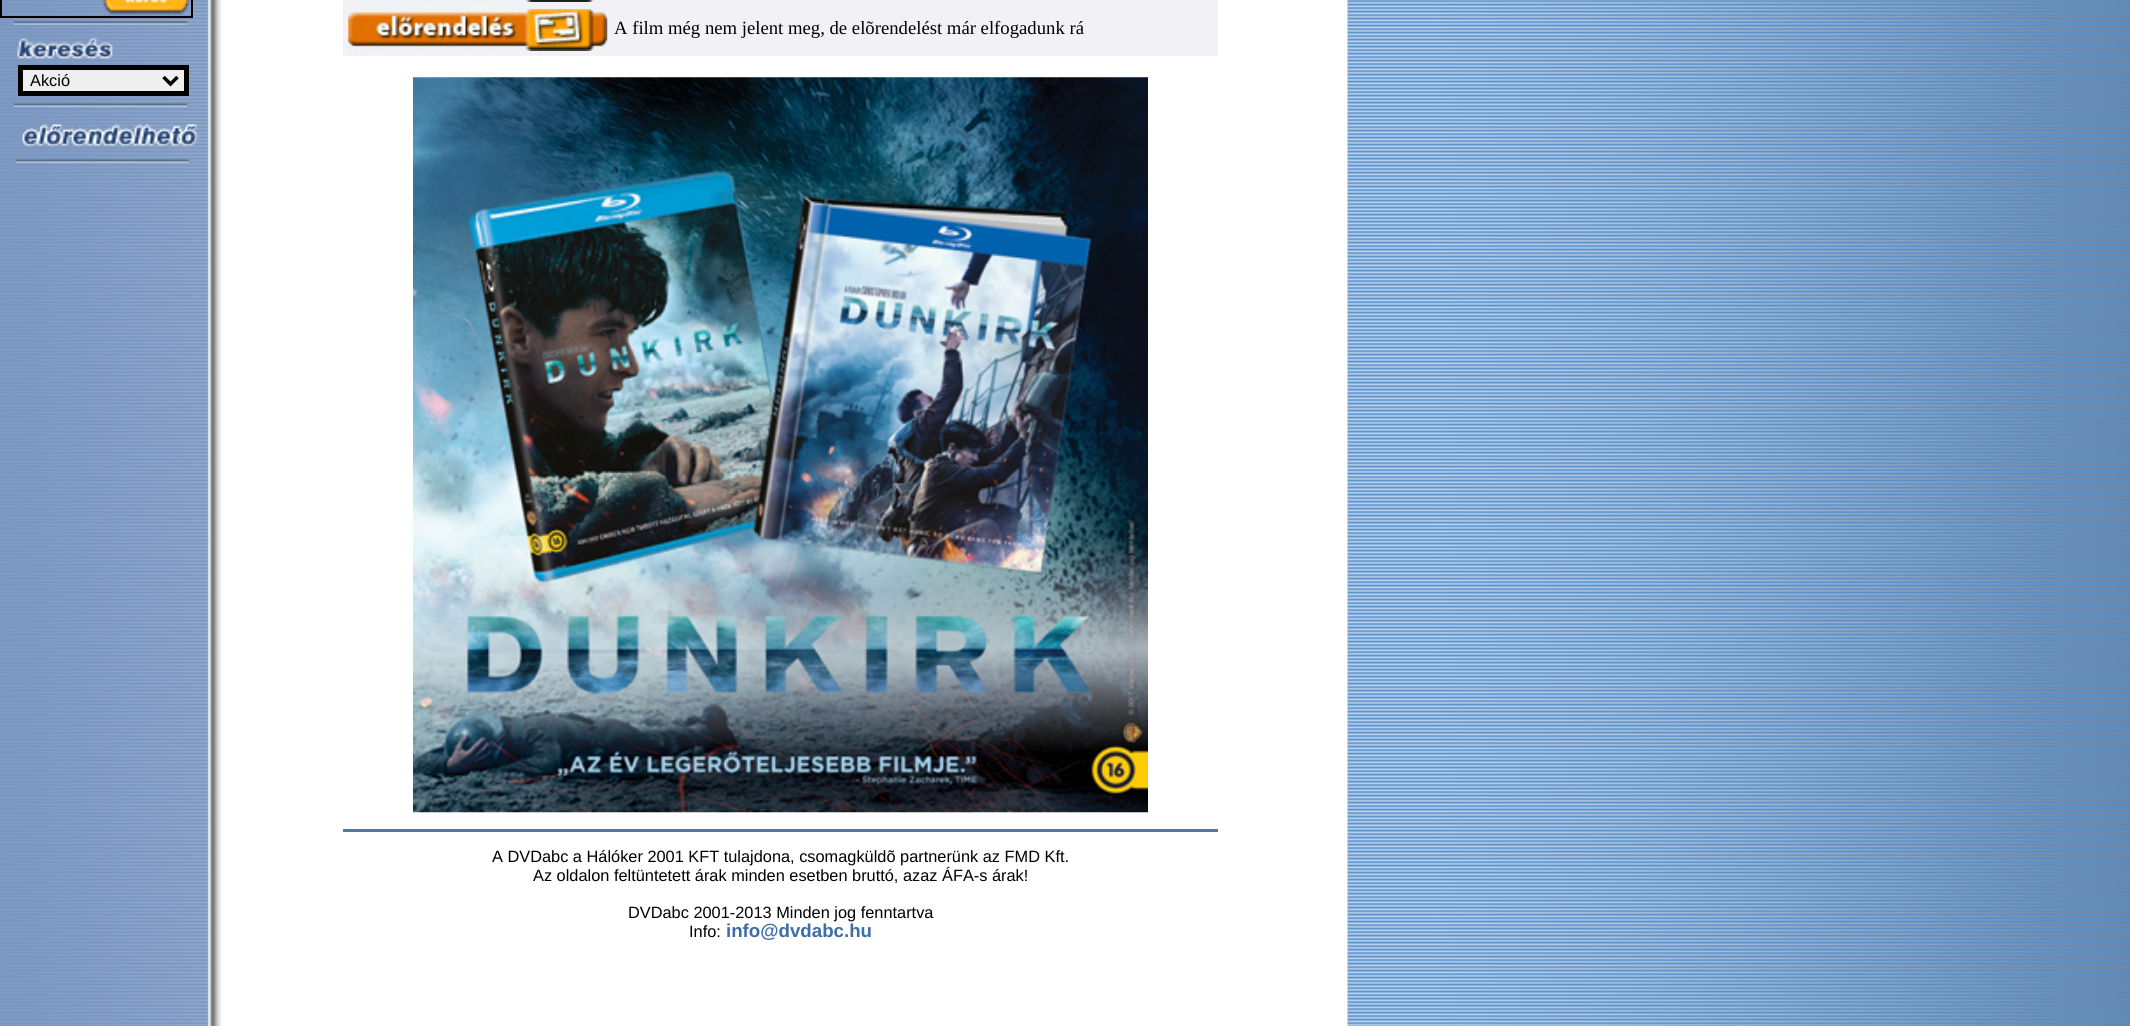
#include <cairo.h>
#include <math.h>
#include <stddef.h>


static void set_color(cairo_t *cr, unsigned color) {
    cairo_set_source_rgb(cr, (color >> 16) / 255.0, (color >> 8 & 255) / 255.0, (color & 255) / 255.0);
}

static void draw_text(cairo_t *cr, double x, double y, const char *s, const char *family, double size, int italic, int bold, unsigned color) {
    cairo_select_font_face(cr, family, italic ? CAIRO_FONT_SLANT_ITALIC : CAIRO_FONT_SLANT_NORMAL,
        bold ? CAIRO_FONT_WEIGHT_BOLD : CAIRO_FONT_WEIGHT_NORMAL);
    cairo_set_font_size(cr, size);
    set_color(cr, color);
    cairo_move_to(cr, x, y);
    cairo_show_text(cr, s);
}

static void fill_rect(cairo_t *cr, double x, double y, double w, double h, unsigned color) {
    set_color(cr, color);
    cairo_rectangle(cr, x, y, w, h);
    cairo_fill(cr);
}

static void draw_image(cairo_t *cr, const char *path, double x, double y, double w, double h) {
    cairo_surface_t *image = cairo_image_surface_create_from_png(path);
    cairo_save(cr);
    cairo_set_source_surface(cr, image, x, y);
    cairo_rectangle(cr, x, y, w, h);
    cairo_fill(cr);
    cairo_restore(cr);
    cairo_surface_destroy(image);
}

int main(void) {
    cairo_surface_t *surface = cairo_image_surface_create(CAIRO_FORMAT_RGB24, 2130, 1026);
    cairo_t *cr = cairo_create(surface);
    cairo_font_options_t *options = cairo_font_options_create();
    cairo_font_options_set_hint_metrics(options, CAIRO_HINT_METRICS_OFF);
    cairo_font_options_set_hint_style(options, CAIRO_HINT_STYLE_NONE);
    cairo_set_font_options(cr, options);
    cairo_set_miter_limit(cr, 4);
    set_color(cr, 0xFFFFFF);
    cairo_paint(cr);
    draw_image(cr, "assets/img1.png", 0, 0, 2130, 1026);
    cairo_rectangle(cr, 1, -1, 191, 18);
    set_color(cr, 0x000000);
    cairo_stroke(cr);
    draw_image(cr, "assets/img2.png", 103, 0, 87, 15);
    draw_image(cr, "assets/img3.png", 14, 21, 174, 4);
    draw_image(cr, "assets/img4.png", 17, 36, 97, 24);
    set_color(cr, 0xEFEFEF);
    cairo_rectangle(cr, 20.5, 67.5, 166, 26);
    cairo_fill_preserve(cr);
    set_color(cr, 0x000000);
    cairo_set_line_width(cr, 5);
    cairo_stroke(cr);
    cairo_new_path(cr);
    cairo_move_to(cr, 163.5, 77);
    cairo_line_to(cr, 170.5, 84);
    cairo_line_to(cr, 177.5, 77);
    cairo_set_line_width(cr, 3.5);
    cairo_stroke(cr);
    draw_text(cr, 30, 86, "Akció", "Liberation Sans", 16.35, 0, 0, 0x000000);
    draw_image(cr, "assets/img5.png", 14, 103, 174, 4);
    draw_image(cr, "assets/img6.png", 22, 124, 177, 24);
    draw_image(cr, "assets/img7.png", 15, 159, 174, 4);
    fill_rect(cr, 343, 0, 875, 56, 0xF2F2F6);
    draw_image(cr, "assets/img8.png", 348, 0, 257, 2);
    draw_image(cr, "assets/img9.png", 348, 9, 260, 42);
    draw_text(cr, 614, 34, "A film még nem jelent meg, de elõrendelést már elfogadunk rá", "Liberation Serif", 18.7, 0, 0, 0x000000);
    draw_image(cr, "assets/img10.png", 413, 77, 735, 736);
    fill_rect(cr, 343, 829, 875, 3, 0x567796);
    draw_text(cr, 492, 862, "A DVDabc a Hálóker 2001 KFT tulajdona, csomagküldõ partnerünk az FMD Kft.", "Liberation Sans", 16.35, 0, 0, 0x000000);
    draw_text(cr, 533, 881, "Az oldalon feltüntetett árak minden esetben bruttó, azaz ÁFA-s árak!", "Liberation Sans", 16.35, 0, 0, 0x000000);
    draw_text(cr, 628, 918, "DVDabc 2001-2013 Minden jog fenntartva", "Liberation Sans", 16.35, 0, 0, 0x000000);
    draw_text(cr, 689, 937, "Info:", "Liberation Sans", 16.35, 0, 0, 0x000000);
    draw_text(cr, 726, 937, "info@dvdabc.hu", "Liberation Sans", 18.7, 0, 1, 0x3E6CA8);
    cairo_surface_write_to_png(surface, "output.png");
    cairo_font_options_destroy(options);
    cairo_destroy(cr);
    cairo_surface_destroy(surface);
    return 0;
}
